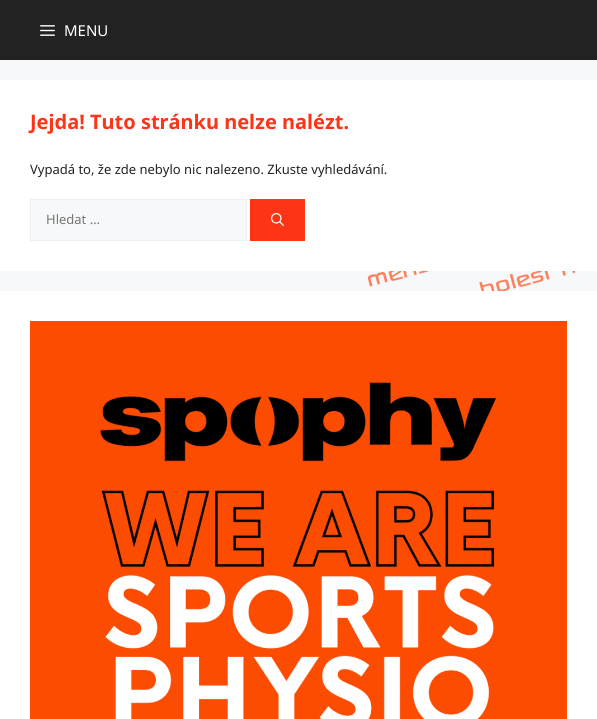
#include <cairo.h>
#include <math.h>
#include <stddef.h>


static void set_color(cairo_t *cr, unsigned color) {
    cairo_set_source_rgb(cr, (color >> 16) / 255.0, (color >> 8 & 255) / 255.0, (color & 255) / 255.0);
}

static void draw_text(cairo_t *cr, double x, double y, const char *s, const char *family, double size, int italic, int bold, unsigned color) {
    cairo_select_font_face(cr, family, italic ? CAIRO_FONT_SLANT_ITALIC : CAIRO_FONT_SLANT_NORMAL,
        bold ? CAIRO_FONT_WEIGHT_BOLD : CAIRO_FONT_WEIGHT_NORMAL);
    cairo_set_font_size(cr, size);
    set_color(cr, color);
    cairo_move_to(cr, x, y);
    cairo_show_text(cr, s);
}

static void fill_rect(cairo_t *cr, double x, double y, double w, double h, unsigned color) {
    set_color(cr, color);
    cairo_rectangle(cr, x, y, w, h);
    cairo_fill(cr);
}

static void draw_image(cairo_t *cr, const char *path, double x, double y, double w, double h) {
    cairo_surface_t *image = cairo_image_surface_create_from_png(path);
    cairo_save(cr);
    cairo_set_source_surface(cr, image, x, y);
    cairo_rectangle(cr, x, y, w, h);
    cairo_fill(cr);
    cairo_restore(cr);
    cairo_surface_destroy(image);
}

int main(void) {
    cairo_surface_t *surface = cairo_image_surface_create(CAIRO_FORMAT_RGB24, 597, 719);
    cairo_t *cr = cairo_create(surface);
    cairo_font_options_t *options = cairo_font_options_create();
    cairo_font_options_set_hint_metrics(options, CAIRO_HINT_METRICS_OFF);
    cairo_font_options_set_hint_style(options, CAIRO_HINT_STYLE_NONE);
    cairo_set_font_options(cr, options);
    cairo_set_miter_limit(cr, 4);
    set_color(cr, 0xF7F8F9);
    cairo_paint(cr);
    draw_image(cr, "assets/img1.png", 368, 271, 208, 20);
    fill_rect(cr, 0, 0, 597, 60, 0x222222);
    draw_image(cr, "assets/img2.png", 40, 25, 15, 11);
    draw_text(cr, 64, 36, "MENU", "Noto Sans", 15, 0, 0, 0xFFFFFF);
    fill_rect(cr, 0, 80, 597, 191, 0xFFFFFF);
    draw_text(cr, 30, 129, "Jejda! Tuto stránku nelze nalézt.", "Noto Sans", 20, 0, 1, 0xFD3516);
    draw_text(cr, 30, 174, "Vypadá to, že zde nebylo nic nalezeno. Zkuste vyhledávání.", "Noto Sans", 13, 0, 0, 0x222222);
    set_color(cr, 0xF7F8F9);
    cairo_rectangle(cr, 30.5, 199.5, 216, 41);
    cairo_fill_preserve(cr);
    set_color(cr, 0xF0F0F0);
    cairo_set_line_width(cr, 1);
    cairo_stroke(cr);
    draw_text(cr, 46, 224, "Hledat …", "Noto Sans", 13, 0, 0, 0x757575);
    fill_rect(cr, 250, 199, 55, 42, 0xFD3516);
    draw_image(cr, "assets/img3.png", 271, 213, 13, 13);
    fill_rect(cr, 0, 291, 597, 428, 0xFFFFFF);
    draw_image(cr, "assets/img4.png", 30, 321, 537, 398);
    cairo_surface_write_to_png(surface, "output.png");
    cairo_font_options_destroy(options);
    cairo_destroy(cr);
    cairo_surface_destroy(surface);
    return 0;
}
